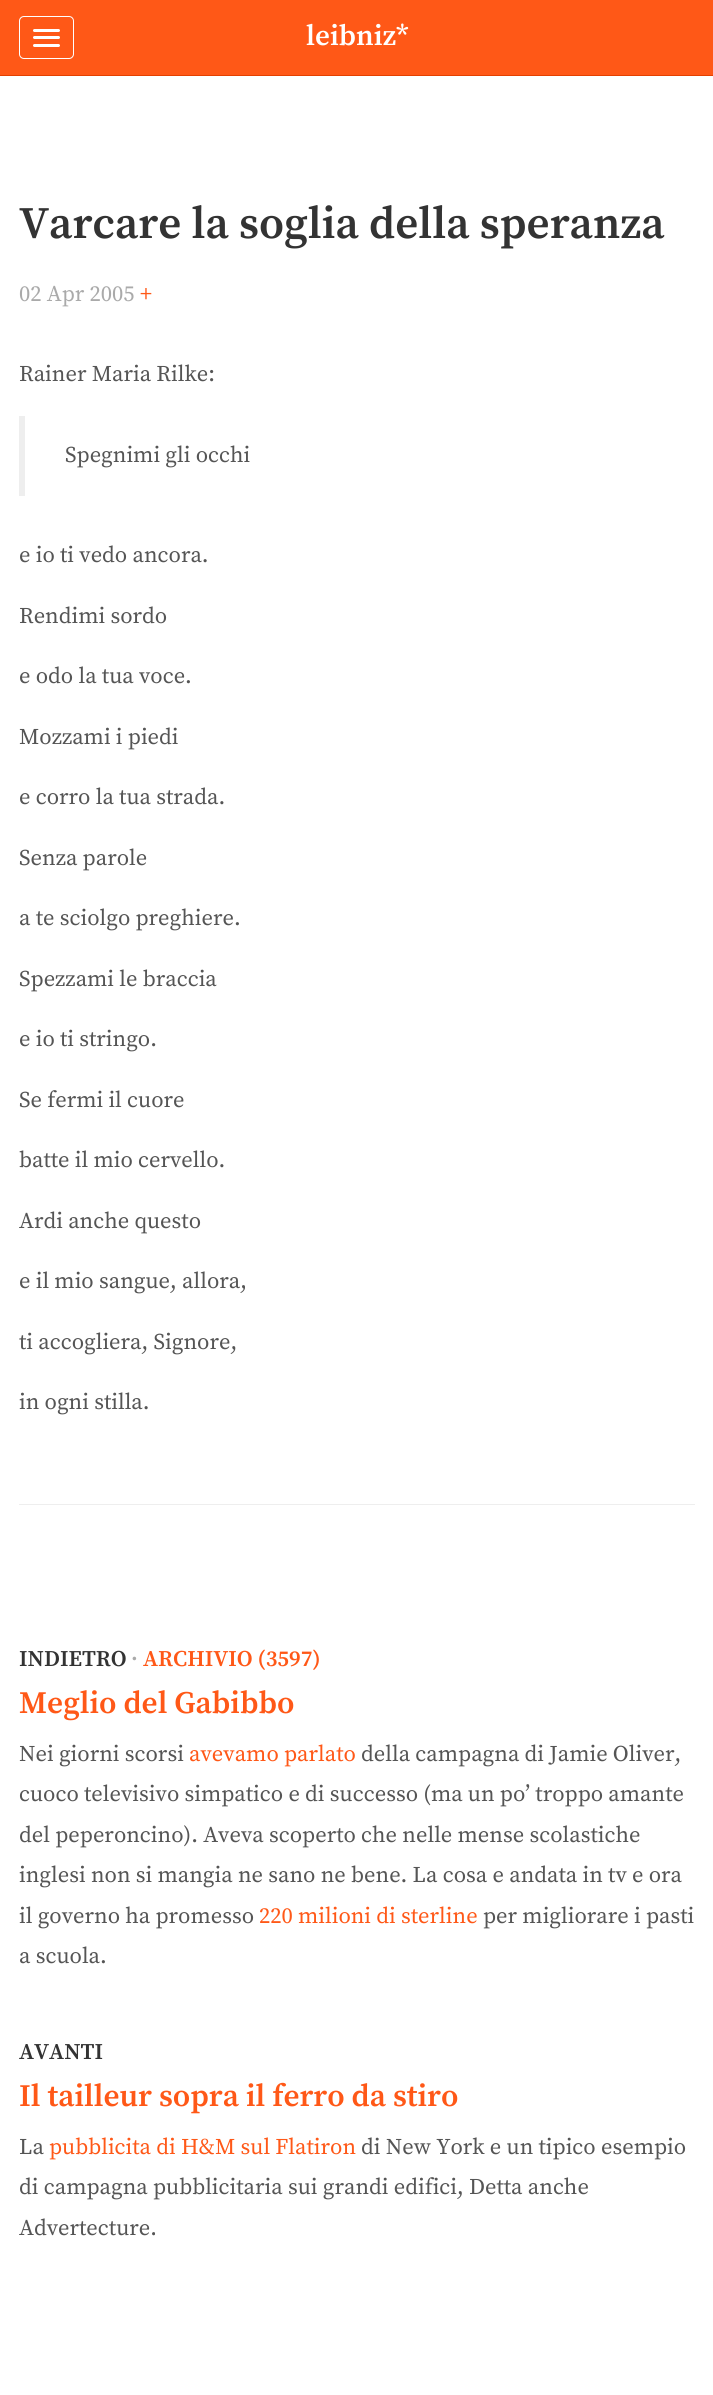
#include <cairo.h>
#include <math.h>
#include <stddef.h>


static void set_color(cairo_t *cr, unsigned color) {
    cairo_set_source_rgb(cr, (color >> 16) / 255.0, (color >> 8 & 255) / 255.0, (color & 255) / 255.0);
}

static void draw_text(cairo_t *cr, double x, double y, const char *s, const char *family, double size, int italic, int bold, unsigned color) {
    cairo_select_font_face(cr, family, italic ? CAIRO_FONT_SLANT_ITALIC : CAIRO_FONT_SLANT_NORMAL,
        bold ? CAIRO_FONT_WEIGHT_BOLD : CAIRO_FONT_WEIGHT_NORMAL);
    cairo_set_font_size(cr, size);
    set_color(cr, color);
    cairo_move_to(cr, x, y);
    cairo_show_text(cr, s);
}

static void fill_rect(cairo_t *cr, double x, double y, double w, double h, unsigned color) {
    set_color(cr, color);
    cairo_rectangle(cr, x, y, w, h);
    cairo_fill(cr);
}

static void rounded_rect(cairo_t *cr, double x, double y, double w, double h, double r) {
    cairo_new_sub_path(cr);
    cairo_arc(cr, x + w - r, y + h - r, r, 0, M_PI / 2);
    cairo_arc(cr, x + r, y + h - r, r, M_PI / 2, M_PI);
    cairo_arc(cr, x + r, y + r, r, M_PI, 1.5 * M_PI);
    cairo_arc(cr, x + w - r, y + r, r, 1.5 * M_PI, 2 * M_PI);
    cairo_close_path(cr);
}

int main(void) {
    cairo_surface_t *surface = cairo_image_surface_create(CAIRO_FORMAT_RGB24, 713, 2395);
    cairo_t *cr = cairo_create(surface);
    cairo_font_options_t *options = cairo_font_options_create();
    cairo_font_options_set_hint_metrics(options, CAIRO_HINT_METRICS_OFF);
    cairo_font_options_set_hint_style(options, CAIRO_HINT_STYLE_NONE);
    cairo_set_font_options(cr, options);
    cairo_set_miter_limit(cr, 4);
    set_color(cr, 0xFFFFFF);
    cairo_paint(cr);
    fill_rect(cr, 0, 0, 713, 75, 0xFF5817);
    fill_rect(cr, 0, 75, 713, 1, 0xE34000);
    rounded_rect(cr, 19.5, 16.5, 54, 42, 4.5);
    set_color(cr, 0xFFFFFF);
    cairo_set_line_width(cr, 1);
    cairo_stroke(cr);
    rounded_rect(cr, 33, 29, 27, 3, 1.5);
    cairo_fill(cr);
    rounded_rect(cr, 33, 36, 27, 3, 1.5);
    cairo_fill(cr);
    rounded_rect(cr, 33, 44, 27, 3, 1.5);
    cairo_fill(cr);
    draw_text(cr, 306, 45, "leibniz*", "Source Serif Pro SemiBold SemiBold", 29, 0, 0, 0xFFFFFF);
    draw_text(cr, 19, 238, "Varcare la soglia della speranza", "Source Serif Pro SemiBold SemiBold", 45, 0, 0, 0x333333);
    draw_text(cr, 19, 301, "02 Apr 2005", "Source Serif Pro", 22.5, 0, 0, 0xAAAAAA);
    draw_text(cr, 140, 301, "+", "Source Serif Pro", 22.5, 0, 0, 0xFF5817);
    draw_text(cr, 19, 381, "Rainer Maria Rilke:", "Source Serif Pro", 22.5, 0, 0, 0x555555);
    fill_rect(cr, 19, 416, 6, 80, 0xEEEEEE);
    draw_text(cr, 65, 462, "Spegnimi gli occhi", "Source Serif Pro", 22.5, 0, 0, 0x555555);
    draw_text(cr, 19, 562, "e io ti vedo ancora.", "Source Serif Pro", 22.5, 0, 0, 0x555555);
    draw_text(cr, 19, 623, "Rendimi sordo", "Source Serif Pro", 22.5, 0, 0, 0x555555);
    draw_text(cr, 19, 683, "e odo la tua voce.", "Source Serif Pro", 22.5, 0, 0, 0x555555);
    draw_text(cr, 19, 744, "Mozzami i piedi", "Source Serif Pro", 22.5, 0, 0, 0x555555);
    draw_text(cr, 19, 804, "e corro la tua strada.", "Source Serif Pro", 22.5, 0, 0, 0x555555);
    draw_text(cr, 19, 865, "Senza parole", "Source Serif Pro", 22.5, 0, 0, 0x555555);
    draw_text(cr, 19, 925, "a te sciolgo preghiere.", "Source Serif Pro", 22.5, 0, 0, 0x555555);
    draw_text(cr, 19, 986, "Spezzami le braccia", "Source Serif Pro", 22.5, 0, 0, 0x555555);
    draw_text(cr, 19, 1046, "e io ti stringo.", "Source Serif Pro", 22.5, 0, 0, 0x555555);
    draw_text(cr, 19, 1107, "Se fermi il cuore", "Source Serif Pro", 22.5, 0, 0, 0x555555);
    draw_text(cr, 19, 1167, "batte il mio cervello.", "Source Serif Pro", 22.5, 0, 0, 0x555555);
    draw_text(cr, 19, 1228, "Ardi anche questo", "Source Serif Pro", 22.5, 0, 0, 0x555555);
    draw_text(cr, 19, 1288, "e il mio sangue, allora,", "Source Serif Pro", 22.5, 0, 0, 0x555555);
    draw_text(cr, 19, 1349, "ti accogliera, Signore,", "Source Serif Pro", 22.5, 0, 0, 0x555555);
    draw_text(cr, 19, 1409, "in ogni stilla.", "Source Serif Pro", 22.5, 0, 0, 0x555555);
    fill_rect(cr, 19, 1504, 676, 1, 0xEEEEEE);
    draw_text(cr, 19, 1666, "INDIETRO", "Source Serif Pro SemiBold SemiBold", 22.5, 0, 0, 0x333333);
    draw_text(cr, 131, 1666, "·", "Source Serif Pro SemiBold SemiBold", 22.5, 0, 0, 0xAAAAAA);
    draw_text(cr, 143, 1666, "ARCHIVIO (3597)", "Source Serif Pro SemiBold SemiBold", 22.5, 0, 0, 0xFF5817);
    draw_text(cr, 19, 1713, "Meglio del Gabibbo", "Source Serif Pro SemiBold SemiBold", 31.25, 0, 0, 0xFF5817);
    draw_text(cr, 19, 1761, "Nei giorni scorsi", "Source Serif Pro", 22.5, 0, 0, 0x555555);
    draw_text(cr, 189, 1761, "avevamo parlato", "Source Serif Pro", 22.5, 0, 0, 0xFF5817);
    draw_text(cr, 361, 1761, "della campagna di Jamie Oliver,", "Source Serif Pro", 22.5, 0, 0, 0x555555);
    draw_text(cr, 19, 1801, "cuoco televisivo simpatico e di successo (ma un po’ troppo amante", "Source Serif Pro", 22.5, 0, 0, 0x555555);
    draw_text(cr, 19, 1842, "del peperoncino). Aveva scoperto che nelle mense scolastiche", "Source Serif Pro", 22.5, 0, 0, 0x555555);
    draw_text(cr, 19, 1882, "inglesi non si mangia ne sano ne bene. La cosa e andata in tv e ora", "Source Serif Pro", 22.5, 0, 0, 0x555555);
    draw_text(cr, 19, 1923, "il governo ha promesso", "Source Serif Pro", 22.5, 0, 0, 0x555555);
    draw_text(cr, 259, 1923, "220 milioni di sterline", "Source Serif Pro", 22.5, 0, 0, 0xFF5817);
    draw_text(cr, 483, 1923, "per migliorare i pasti", "Source Serif Pro", 22.5, 0, 0, 0x555555);
    draw_text(cr, 19, 1963, "a scuola.", "Source Serif Pro", 22.5, 0, 0, 0x555555);
    draw_text(cr, 19, 2059, "AVANTI", "Source Serif Pro SemiBold SemiBold", 22.5, 0, 0, 0x333333);
    draw_text(cr, 19, 2106, "Il tailleur sopra il ferro da stiro", "Source Serif Pro SemiBold SemiBold", 31.25, 0, 0, 0xFF5817);
    draw_text(cr, 19, 2154, "La", "Source Serif Pro", 22.5, 0, 0, 0x555555);
    draw_text(cr, 49, 2154, "pubblicita di H&M sul Flatiron", "Source Serif Pro", 22.5, 0, 0, 0xFF5817);
    draw_text(cr, 361, 2154, "di New York e un tipico esempio", "Source Serif Pro", 22.5, 0, 0, 0x555555);
    draw_text(cr, 19, 2194, "di campagna pubblicitaria sui grandi edifici, Detta anche", "Source Serif Pro", 22.5, 0, 0, 0x555555);
    draw_text(cr, 19, 2235, "Advertecture.", "Source Serif Pro", 22.5, 0, 0, 0x555555);
    cairo_surface_write_to_png(surface, "output.png");
    cairo_font_options_destroy(options);
    cairo_destroy(cr);
    cairo_surface_destroy(surface);
    return 0;
}
